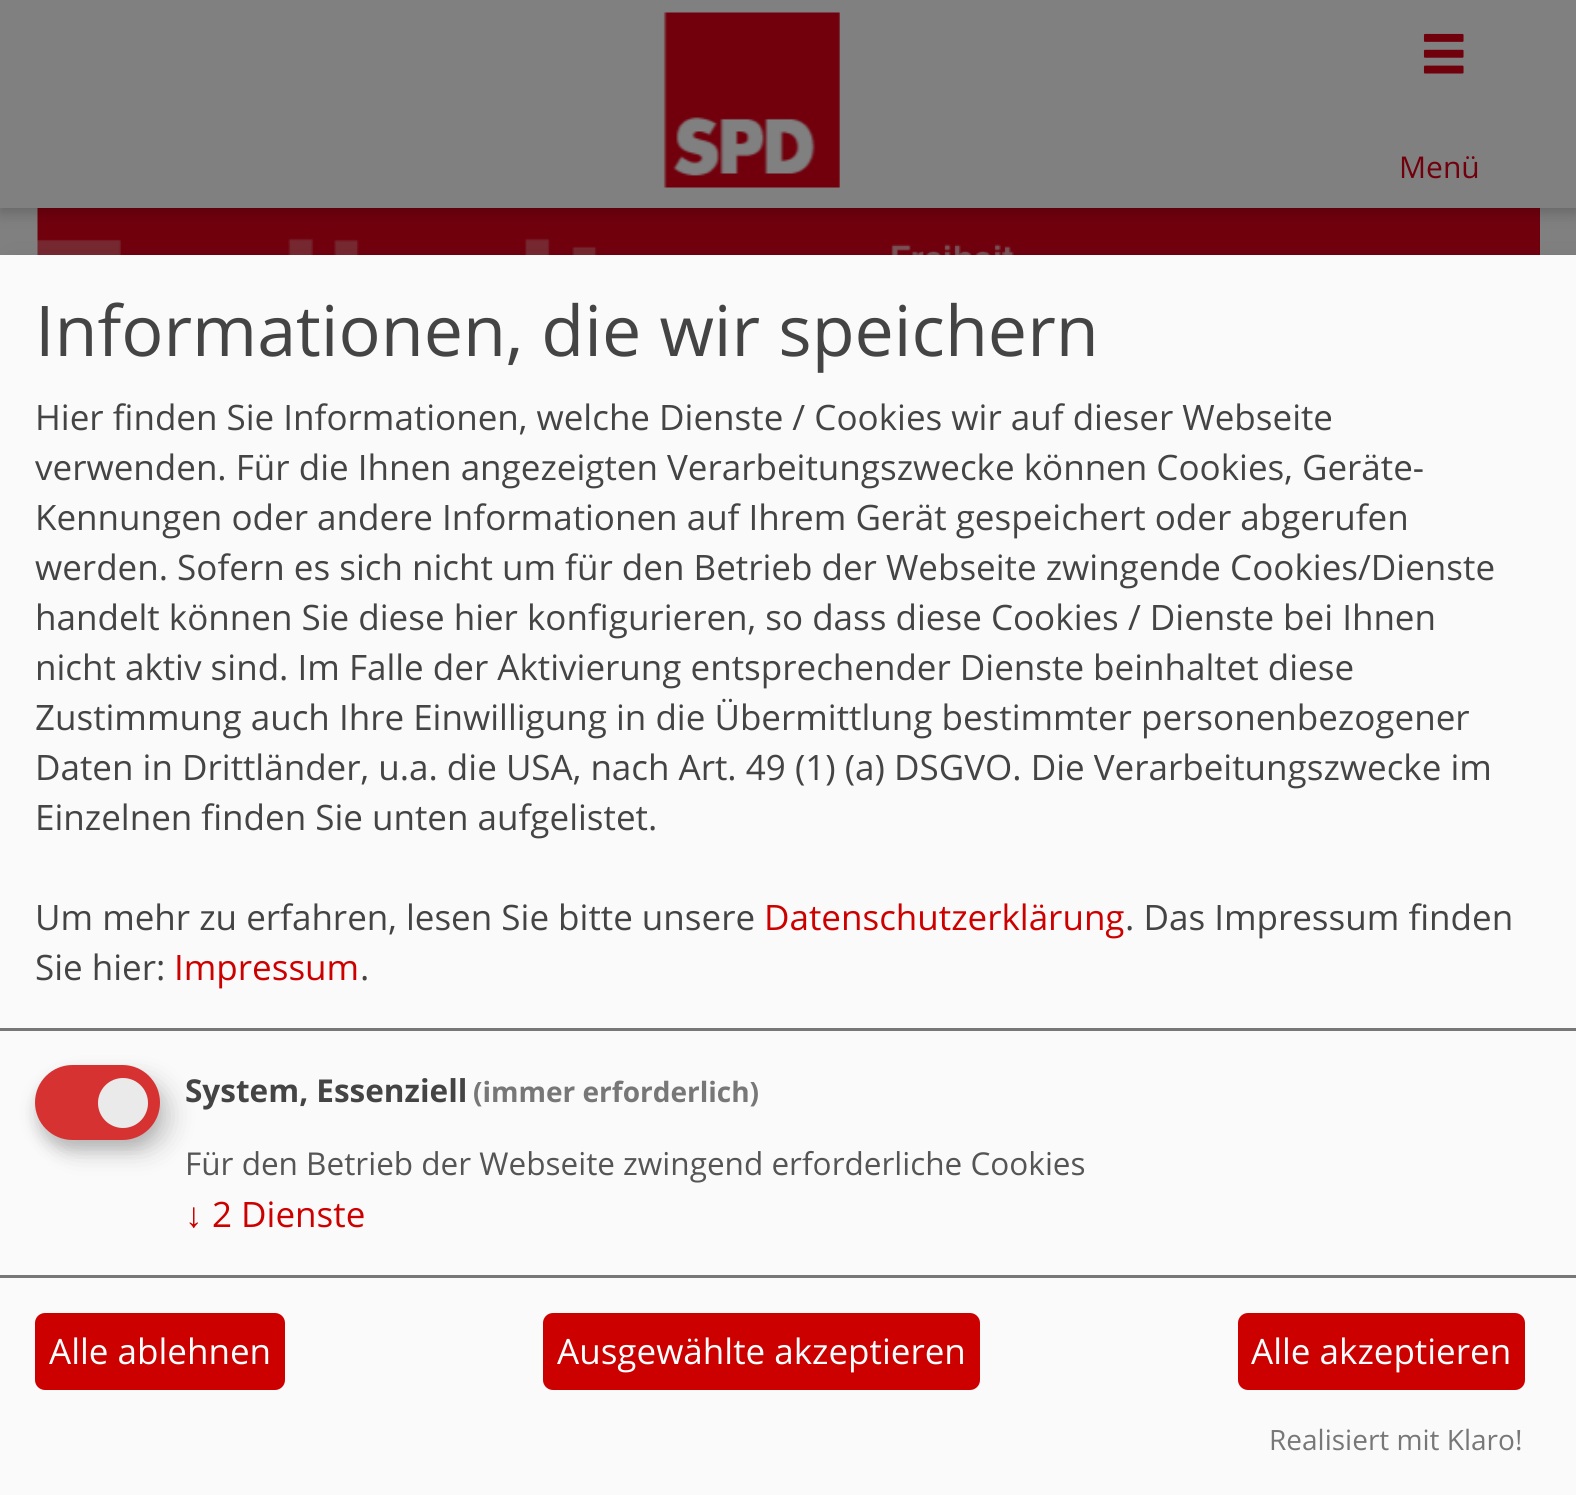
#include <cairo.h>
#include <math.h>
#include <stddef.h>


static void set_color(cairo_t *cr, unsigned color) {
    cairo_set_source_rgb(cr, (color >> 16) / 255.0, (color >> 8 & 255) / 255.0, (color & 255) / 255.0);
}

static void draw_text(cairo_t *cr, double x, double y, const char *s, const char *family, double size, int italic, int bold, unsigned color) {
    cairo_select_font_face(cr, family, italic ? CAIRO_FONT_SLANT_ITALIC : CAIRO_FONT_SLANT_NORMAL,
        bold ? CAIRO_FONT_WEIGHT_BOLD : CAIRO_FONT_WEIGHT_NORMAL);
    cairo_set_font_size(cr, size);
    set_color(cr, color);
    cairo_move_to(cr, x, y);
    cairo_show_text(cr, s);
}

static void fill_rect(cairo_t *cr, double x, double y, double w, double h, unsigned color) {
    set_color(cr, color);
    cairo_rectangle(cr, x, y, w, h);
    cairo_fill(cr);
}

static void rounded_rect(cairo_t *cr, double x, double y, double w, double h, double r) {
    cairo_new_sub_path(cr);
    cairo_arc(cr, x + w - r, y + h - r, r, 0, M_PI / 2);
    cairo_arc(cr, x + r, y + h - r, r, M_PI / 2, M_PI);
    cairo_arc(cr, x + r, y + r, r, M_PI, 1.5 * M_PI);
    cairo_arc(cr, x + w - r, y + r, r, 1.5 * M_PI, 2 * M_PI);
    cairo_close_path(cr);
}

static void draw_shadow(cairo_t *cr, double x, double y, double w, double h, double r, double blur, double alpha) {
    cairo_push_group_with_content(cr, CAIRO_CONTENT_ALPHA);
    cairo_set_operator(cr, CAIRO_OPERATOR_SOURCE);
    for (int i = 15; i >= -15 && fmin(w, h) + blur * i / 3 > 0; i -= 2) {
        double e = blur * i / 6;
        cairo_set_source_rgba(cr, 0, 0, 0, alpha * erfc((i - 1) / 8.5) / 2);
        rounded_rect(cr, x - e, y - e, w + 2 * e, h + 2 * e, fmax(0, fmin(r + e + blur * .6, fmin(w, h) / 2 + e)));
        cairo_fill(cr);
    }
    cairo_pattern_t *soft = cairo_pop_group(cr);
    cairo_mask(cr, soft);
    cairo_pattern_destroy(soft);
}

static void draw_image(cairo_t *cr, const char *path, double x, double y, double w, double h) {
    cairo_surface_t *image = cairo_image_surface_create_from_png(path);
    cairo_save(cr);
    cairo_set_source_surface(cr, image, x, y);
    cairo_rectangle(cr, x, y, w, h);
    cairo_fill(cr);
    cairo_restore(cr);
    cairo_surface_destroy(image);
}

int main(void) {
    cairo_surface_t *surface = cairo_image_surface_create(CAIRO_FORMAT_RGB24, 1576, 1495);
    cairo_t *cr = cairo_create(surface);
    cairo_font_options_t *options = cairo_font_options_create();
    cairo_font_options_set_hint_metrics(options, CAIRO_HINT_METRICS_OFF);
    cairo_font_options_set_hint_style(options, CAIRO_HINT_STYLE_NONE);
    cairo_set_font_options(cr, options);
    cairo_set_miter_limit(cr, 4);
    set_color(cr, 0x808080);
    cairo_paint(cr);
    draw_image(cr, "assets/img3.png", 37, 208, 1503, 47);
    set_color(cr, 0x000000);
    draw_shadow(cr, 0, 5, 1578, 208, 0, 7.5, 0.2);
    fill_rect(cr, 0, 0, 1576, 208, 0x808080);
    draw_image(cr, "assets/img1.png", 663, 12, 177, 176);
    draw_image(cr, "assets/img2.png", 1423, 33, 41, 41);
    draw_text(cr, 1399, 178, "Menü", "Open Sans", 30, 0, 0, 0x71000D);
    set_color(cr, 0x000000);
    draw_shadow(cr, 13, 268, 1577, 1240, 0, 12.5, 0.19);
    fill_rect(cr, 0, 255, 1576, 1240, 0xFAFAFA);
    fill_rect(cr, 0, 1028, 1576, 3, 0x777777);
    draw_text(cr, 35, 356, "Informationen, die wir speichern", "Open Sans", 70, 0, 0, 0x444444);
    draw_text(cr, 35, 430, "Hier finden Sie Informationen, welche Dienste / Cookies wir auf dieser Webseite", "Open Sans", 35, 0, 0, 0x444444);
    draw_text(cr, 35, 480, "verwenden. Für die Ihnen angezeigten Verarbeitungszwecke können Cookies, Geräte-", "Open Sans", 35, 0, 0, 0x444444);
    draw_text(cr, 35, 530, "Kennungen oder andere Informationen auf Ihrem Gerät gespeichert oder abgerufen", "Open Sans", 35, 0, 0, 0x444444);
    draw_text(cr, 35, 580, "werden. Sofern es sich nicht um für den Betrieb der Webseite zwingende Cookies/Dienste", "Open Sans", 35, 0, 0, 0x444444);
    draw_text(cr, 35, 630, "handelt können Sie diese hier konfigurieren, so dass diese Cookies / Dienste bei Ihnen", "Open Sans", 35, 0, 0, 0x444444);
    draw_text(cr, 35, 680, "nicht aktiv sind. Im Falle der Aktivierung entsprechender Dienste beinhaltet diese", "Open Sans", 35, 0, 0, 0x444444);
    draw_text(cr, 35, 730, "Zustimmung auch Ihre Einwilligung in die Übermittlung bestimmter personenbezogener", "Open Sans", 35, 0, 0, 0x444444);
    draw_text(cr, 35, 780, "Daten in Drittländer, u.a. die USA, nach Art. 49 (1) (a) DSGVO. Die Verarbeitungszwecke im", "Open Sans", 35, 0, 0, 0x444444);
    draw_text(cr, 35, 830, "Einzelnen finden Sie unten aufgelistet.", "Open Sans", 35, 0, 0, 0x444444);
    draw_text(cr, 35, 930, "Um mehr zu erfahren, lesen Sie bitte unsere", "Open Sans", 35, 0, 0, 0x444444);
    draw_text(cr, 764, 930, "Datenschutzerklärung", "Open Sans", 35, 0, 0, 0xCD0000);
    draw_text(cr, 1125, 930, ". Das Impressum finden", "Open Sans", 35, 0, 0, 0x444444);
    draw_text(cr, 35, 980, "Sie hier:", "Open Sans", 35, 0, 0, 0x444444);
    draw_text(cr, 174, 980, "Impressum", "Open Sans", 35, 0, 0, 0xCD0000);
    draw_text(cr, 360, 980, ".", "Open Sans", 35, 0, 0, 0x444444);
    set_color(cr, 0x000000);
    draw_shadow(cr, 48, 1078, 125, 75, 37.5, 12.5, 0.15);
    set_color(cr, 0x323232);
    draw_shadow(cr, 35, 1075, 125, 75, 37.5, 7.5, 0.2);
    set_color(cr, 0xD63232);
    rounded_rect(cr, 35, 1065, 125, 75, 37.5);
    cairo_fill(cr);
    set_color(cr, 0xEAEAEA);
    cairo_arc(cr, 123, 1103, 25, 0, 2 * M_PI);
    cairo_fill(cr);
    draw_text(cr, 185, 1102, "System, Essenziell", "Open Sans", 31.5, 0, 1, 0x444444);
    draw_text(cr, 473, 1102, "(immer erforderlich)", "Open Sans", 28, 0, 1, 0x777777);
    draw_text(cr, 185, 1175, "Für den Betrieb der Webseite zwingend erforderliche Cookies", "Open Sans", 31.5, 0, 0, 0x555555);
    draw_text(cr, 185, 1227, "↓", "Liberation Sans", 35, 0, 0, 0xCD0000);
    draw_text(cr, 212, 1227, "2 Dienste", "Open Sans", 35, 0, 0, 0xCD0000);
    fill_rect(cr, 0, 1275, 1576, 3, 0x777777);
    set_color(cr, 0xCD0000);
    rounded_rect(cr, 35, 1313, 250, 77, 10);
    cairo_fill(cr);
    draw_text(cr, 49, 1364, "Alle ablehnen", "Open Sans", 35, 0, 0, 0xFFFFFF);
    set_color(cr, 0xCD0000);
    rounded_rect(cr, 543, 1313, 437, 77, 10);
    cairo_fill(cr);
    draw_text(cr, 557, 1364, "Ausgewählte akzeptieren", "Open Sans", 35, 0, 0, 0xFFFFFF);
    set_color(cr, 0xCD0000);
    rounded_rect(cr, 1238, 1313, 287, 77, 10);
    cairo_fill(cr);
    draw_text(cr, 1251, 1364, "Alle akzeptieren", "Open Sans", 35, 0, 0, 0xFFFFFF);
    draw_text(cr, 1269, 1450, "Realisiert mit Klaro!", "Open Sans", 28, 0, 0, 0x777777);
    cairo_surface_write_to_png(surface, "output.png");
    cairo_font_options_destroy(options);
    cairo_destroy(cr);
    cairo_surface_destroy(surface);
    return 0;
}
